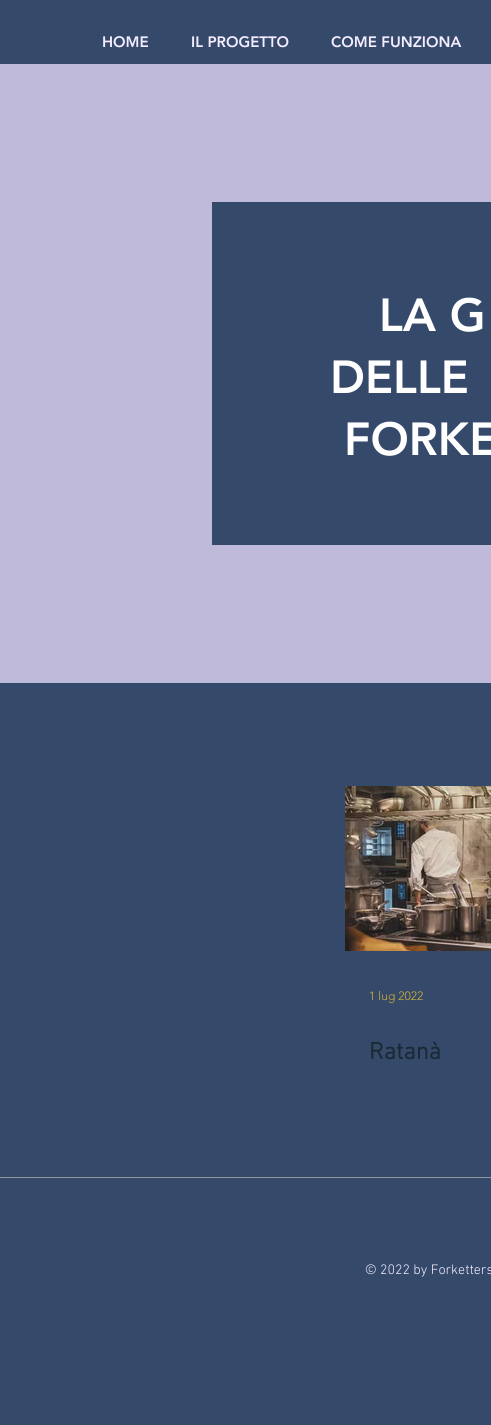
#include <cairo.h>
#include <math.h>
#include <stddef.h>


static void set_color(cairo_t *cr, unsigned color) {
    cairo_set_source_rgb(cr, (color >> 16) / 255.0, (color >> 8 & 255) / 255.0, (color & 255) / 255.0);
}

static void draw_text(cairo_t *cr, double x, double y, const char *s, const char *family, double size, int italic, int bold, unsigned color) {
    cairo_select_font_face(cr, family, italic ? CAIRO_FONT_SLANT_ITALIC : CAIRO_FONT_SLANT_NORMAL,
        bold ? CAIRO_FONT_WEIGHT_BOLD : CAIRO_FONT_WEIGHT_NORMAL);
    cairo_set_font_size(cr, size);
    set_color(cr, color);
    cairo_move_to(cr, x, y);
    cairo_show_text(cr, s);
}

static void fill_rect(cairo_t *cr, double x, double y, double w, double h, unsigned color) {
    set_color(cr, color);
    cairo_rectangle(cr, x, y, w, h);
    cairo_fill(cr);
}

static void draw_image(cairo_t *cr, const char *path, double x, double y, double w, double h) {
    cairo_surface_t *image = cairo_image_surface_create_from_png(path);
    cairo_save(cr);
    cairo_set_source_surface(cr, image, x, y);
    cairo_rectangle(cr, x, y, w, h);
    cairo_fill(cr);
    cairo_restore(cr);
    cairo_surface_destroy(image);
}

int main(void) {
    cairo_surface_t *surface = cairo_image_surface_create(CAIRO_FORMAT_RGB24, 491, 1425);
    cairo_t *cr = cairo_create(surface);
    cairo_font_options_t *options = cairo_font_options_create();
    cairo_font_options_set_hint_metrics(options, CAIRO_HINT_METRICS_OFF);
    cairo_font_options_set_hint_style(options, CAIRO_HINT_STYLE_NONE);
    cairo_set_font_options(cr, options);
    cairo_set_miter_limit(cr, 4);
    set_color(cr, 0x354A6B);
    cairo_paint(cr);
    draw_text(cr, 102, 47, "HOME", "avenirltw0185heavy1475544 Black", 15, 0, 0, 0xF5EDFF);
    draw_text(cr, 191, 47, "IL PROGETTO", "avenirltw0185heavy1475544 Black", 15, 0, 0, 0xF5EDFF);
    draw_text(cr, 331, 47, "COME FUNZIONA", "avenirltw0185heavy1475544 Black", 15, 0, 0, 0xF5EDFF);
    fill_rect(cr, 0, 64, 491, 619, 0xBFBAD9);
    fill_rect(cr, 212, 202, 279, 343, 0x354A6B);
    draw_text(cr, 379, 331, "LA G", "avenirltw0185heavy1475544 Black", 46, 0, 0, 0xFFFFFF);
    draw_text(cr, 330, 393, "DELLE", "avenirltw0185heavy1475544 Black", 46, 0, 0, 0xFFFFFF);
    draw_text(cr, 344, 455, "FORKE", "avenirltw0185heavy1475544 Black", 46, 0, 0, 0xFFFFFF);
    draw_image(cr, "assets/img1.png", 345, 786, 146, 165);
    draw_text(cr, 369, 1000, "1 lug 2022", "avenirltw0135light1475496 Light", 12, 0, 0, 0xD0B335);
    draw_text(cr, 369, 1059, "Ratanà", "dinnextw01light", 24, 0, 1, 0x192A33);
    fill_rect(cr, 0, 1177, 491, 1, 0x94949B);
    draw_text(cr, 365, 1274, "© 2022 by Forketters", "dinnextw01light Light", 14, 0, 0, 0xF5EDFF);
    cairo_surface_write_to_png(surface, "output.png");
    cairo_font_options_destroy(options);
    cairo_destroy(cr);
    cairo_surface_destroy(surface);
    return 0;
}
